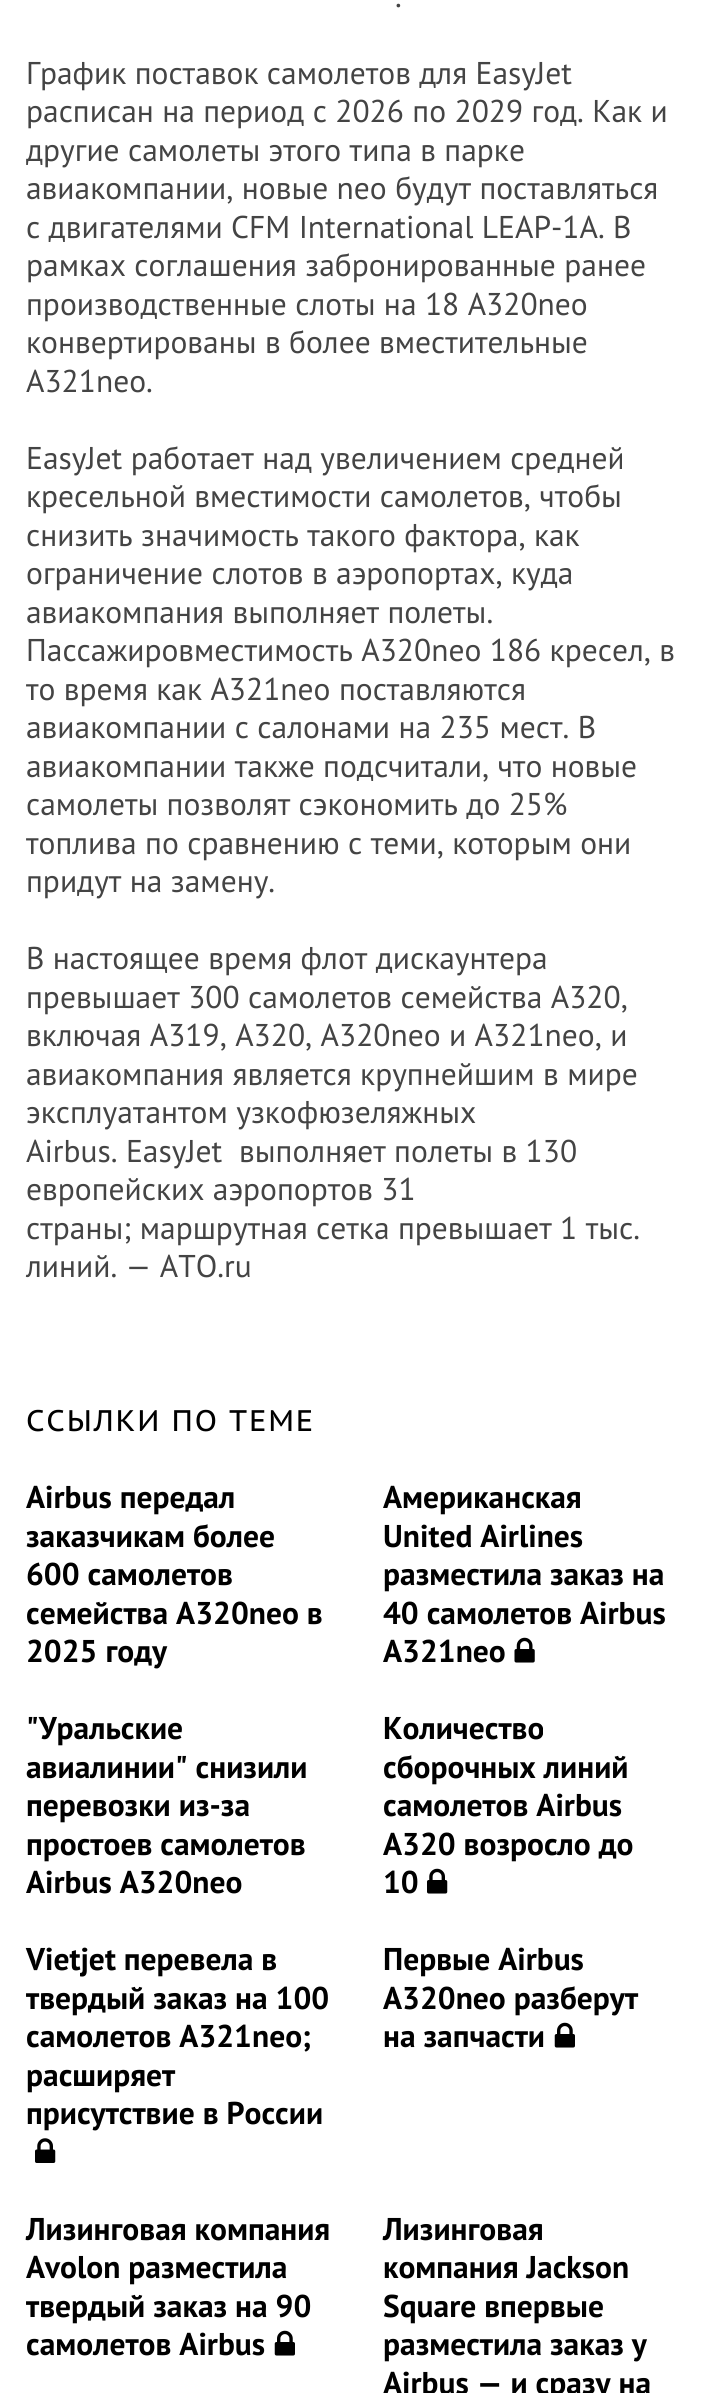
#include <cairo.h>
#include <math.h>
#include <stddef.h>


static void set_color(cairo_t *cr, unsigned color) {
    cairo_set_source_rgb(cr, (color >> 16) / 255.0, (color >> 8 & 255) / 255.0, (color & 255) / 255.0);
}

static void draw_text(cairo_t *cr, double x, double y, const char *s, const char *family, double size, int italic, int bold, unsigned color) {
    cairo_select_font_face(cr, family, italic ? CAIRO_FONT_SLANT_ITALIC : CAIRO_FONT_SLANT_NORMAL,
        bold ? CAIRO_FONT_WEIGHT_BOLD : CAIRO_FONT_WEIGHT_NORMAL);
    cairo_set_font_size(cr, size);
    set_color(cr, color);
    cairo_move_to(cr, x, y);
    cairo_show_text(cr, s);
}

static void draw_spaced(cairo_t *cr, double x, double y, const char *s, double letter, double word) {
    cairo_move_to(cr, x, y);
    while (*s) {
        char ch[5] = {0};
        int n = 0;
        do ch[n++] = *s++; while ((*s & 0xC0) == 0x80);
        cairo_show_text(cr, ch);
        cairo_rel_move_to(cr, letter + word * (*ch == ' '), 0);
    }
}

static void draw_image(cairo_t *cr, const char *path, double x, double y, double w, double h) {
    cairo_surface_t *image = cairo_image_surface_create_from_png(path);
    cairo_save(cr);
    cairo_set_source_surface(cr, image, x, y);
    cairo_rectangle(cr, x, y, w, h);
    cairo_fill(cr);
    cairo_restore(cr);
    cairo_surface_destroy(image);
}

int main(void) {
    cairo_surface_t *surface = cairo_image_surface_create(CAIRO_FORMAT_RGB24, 701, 2393);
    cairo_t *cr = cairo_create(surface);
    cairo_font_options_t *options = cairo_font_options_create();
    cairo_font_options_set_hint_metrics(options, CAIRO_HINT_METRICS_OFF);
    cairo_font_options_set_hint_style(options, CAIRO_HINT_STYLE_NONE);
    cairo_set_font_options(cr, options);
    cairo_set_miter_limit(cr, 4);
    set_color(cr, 0xFFFFFF);
    cairo_paint(cr);
    draw_text(cr, 395, 7, ".", "PT Sans", 31.5, 0, 0, 0x444444);
    draw_text(cr, 26, 84, "График поставок самолетов для EasyJet", "PT Sans", 31.5, 0, 0, 0x444444);
    draw_text(cr, 26, 122, "расписан на период с 2026 по 2029 год. Как и", "PT Sans", 31.5, 0, 0, 0x444444);
    draw_text(cr, 26, 161, "другие самолеты этого типа в парке", "PT Sans", 31.5, 0, 0, 0x444444);
    draw_text(cr, 26, 199, "авиакомпании, новые neo будут поставляться", "PT Sans", 31.5, 0, 0, 0x444444);
    draw_text(cr, 26, 238, "с двигателями CFM International LEAP-1A. В", "PT Sans", 31.5, 0, 0, 0x444444);
    draw_text(cr, 26, 276, "рамках соглашения забронированные ранее", "PT Sans", 31.5, 0, 0, 0x444444);
    draw_text(cr, 26, 315, "производственные слоты на 18 A320neo", "PT Sans", 31.5, 0, 0, 0x444444);
    draw_text(cr, 26, 353, "конвертированы в более вместительные", "PT Sans", 31.5, 0, 0, 0x444444);
    draw_text(cr, 26, 392, "A321neo.", "PT Sans", 31.5, 0, 0, 0x444444);
    draw_text(cr, 26, 469, "EasyJet работает над увеличением средней", "PT Sans", 31.5, 0, 0, 0x444444);
    draw_text(cr, 26, 507, "кресельной вместимости самолетов, чтобы", "PT Sans", 31.5, 0, 0, 0x444444);
    draw_text(cr, 26, 546, "снизить значимость такого фактора, как", "PT Sans", 31.5, 0, 0, 0x444444);
    draw_text(cr, 26, 584, "ограничение слотов в аэропортах, куда", "PT Sans", 31.5, 0, 0, 0x444444);
    draw_text(cr, 26, 623, "авиакомпания выполняет полеты.", "PT Sans", 31.5, 0, 0, 0x444444);
    draw_text(cr, 26, 661, "Пассажировместимость A320neo 186 кресел, в", "PT Sans", 31.5, 0, 0, 0x444444);
    draw_text(cr, 26, 700, "то время как A321neo поставляются", "PT Sans", 31.5, 0, 0, 0x444444);
    draw_text(cr, 26, 738, "авиакомпании с салонами на 235 мест. В", "PT Sans", 31.5, 0, 0, 0x444444);
    draw_text(cr, 26, 777, "авиакомпании также подсчитали, что новые", "PT Sans", 31.5, 0, 0, 0x444444);
    draw_text(cr, 26, 815, "самолеты позволят сэкономить до 25%", "PT Sans", 31.5, 0, 0, 0x444444);
    draw_text(cr, 26, 854, "топлива по сравнению с теми, которым они", "PT Sans", 31.5, 0, 0, 0x444444);
    draw_text(cr, 26, 892, "придут на замену.", "PT Sans", 31.5, 0, 0, 0x444444);
    draw_text(cr, 26, 969, "В настоящее время флот дискаунтера", "PT Sans", 31.5, 0, 0, 0x444444);
    draw_text(cr, 26, 1008, "превышает 300 самолетов семейства A320,", "PT Sans", 31.5, 0, 0, 0x444444);
    draw_text(cr, 26, 1046, "включая A319, A320, A320neo и A321neo, и", "PT Sans", 31.5, 0, 0, 0x444444);
    draw_text(cr, 26, 1085, "авиакомпания является крупнейшим в мире", "PT Sans", 31.5, 0, 0, 0x444444);
    draw_text(cr, 26, 1123, "эксплуатантом узкофюзеляжных", "PT Sans", 31.5, 0, 0, 0x444444);
    draw_text(cr, 26, 1162, "Airbus. EasyJet  выполняет полеты в 130", "PT Sans", 31.5, 0, 0, 0x444444);
    draw_text(cr, 26, 1200, "европейских аэропортов 31", "PT Sans", 31.5, 0, 0, 0x444444);
    draw_text(cr, 26, 1239, "страны; маршрутная сетка превышает 1 тыс.", "PT Sans", 31.5, 0, 0, 0x444444);
    draw_text(cr, 26, 1277, "линий. — ATO.ru", "PT Sans", 31.5, 0, 0, 0x444444);
    cairo_select_font_face(cr, "PT Sans Caption", CAIRO_FONT_SLANT_NORMAL, CAIRO_FONT_WEIGHT_NORMAL);
    cairo_set_font_size(cr, 29.75);
    set_color(cr, 0x000000);
    draw_spaced(cr, 26, 1431, "ССЫЛКИ ПО ТЕМЕ", 1.75, 0);
    draw_text(cr, 26, 1508, "Airbus передал", "PT Sans", 31.5, 0, 1, 0x000000);
    draw_text(cr, 26, 1547, "заказчикам более", "PT Sans", 31.5, 0, 1, 0x000000);
    draw_text(cr, 26, 1585, "600 самолетов", "PT Sans", 31.5, 0, 1, 0x000000);
    draw_text(cr, 26, 1624, "семейства A320neo в", "PT Sans", 31.5, 0, 1, 0x000000);
    draw_text(cr, 26, 1662, "2025 году", "PT Sans", 31.5, 0, 1, 0x000000);
    draw_text(cr, 383, 1508, "Американская", "PT Sans", 31.5, 0, 1, 0x000000);
    draw_text(cr, 383, 1547, "United Airlines", "PT Sans", 31.5, 0, 1, 0x000000);
    draw_text(cr, 383, 1585, "разместила заказ на", "PT Sans", 31.5, 0, 1, 0x000000);
    draw_text(cr, 383, 1624, "40 самолетов Airbus", "PT Sans", 31.5, 0, 1, 0x000000);
    draw_text(cr, 383, 1662, "A321neo", "PT Sans", 31.5, 0, 1, 0x000000);
    draw_image(cr, "assets/img1.png", 514, 1637, 21, 26);
    draw_text(cr, 26, 1739, "\"Уральские", "PT Sans", 31.5, 0, 1, 0x000000);
    draw_text(cr, 26, 1778, "авиалинии\" снизили", "PT Sans", 31.5, 0, 1, 0x000000);
    draw_text(cr, 26, 1816, "перевозки из-за", "PT Sans", 31.5, 0, 1, 0x000000);
    draw_text(cr, 26, 1855, "простоев самолетов", "PT Sans", 31.5, 0, 1, 0x000000);
    draw_text(cr, 26, 1893, "Airbus A320neo", "PT Sans", 31.5, 0, 1, 0x000000);
    draw_text(cr, 383, 1739, "Количество", "PT Sans", 31.5, 0, 1, 0x000000);
    draw_text(cr, 383, 1778, "сборочных линий", "PT Sans", 31.5, 0, 1, 0x000000);
    draw_text(cr, 383, 1816, "самолетов Airbus", "PT Sans", 31.5, 0, 1, 0x000000);
    draw_text(cr, 383, 1855, "A320 возросло до", "PT Sans", 31.5, 0, 1, 0x000000);
    draw_text(cr, 383, 1893, "10", "PT Sans", 31.5, 0, 1, 0x000000);
    draw_image(cr, "assets/img2.png", 427, 1868, 21, 26);
    draw_text(cr, 26, 1970, "Vietjet перевела в", "PT Sans", 31.5, 0, 1, 0x000000);
    draw_text(cr, 26, 2009, "твердый заказ на 100", "PT Sans", 31.5, 0, 1, 0x000000);
    draw_text(cr, 26, 2047, "самолетов A321neo;", "PT Sans", 31.5, 0, 1, 0x000000);
    draw_text(cr, 26, 2086, "расширяет", "PT Sans", 31.5, 0, 1, 0x000000);
    draw_text(cr, 26, 2124, "присутствие в России", "PT Sans", 31.5, 0, 1, 0x000000);
    draw_image(cr, "assets/img3.png", 35, 2138, 21, 25);
    draw_text(cr, 383, 1970, "Первые Airbus", "PT Sans", 31.5, 0, 1, 0x000000);
    draw_text(cr, 383, 2009, "A320neo разберут", "PT Sans", 31.5, 0, 1, 0x000000);
    draw_text(cr, 383, 2047, "на запчасти", "PT Sans", 31.5, 0, 1, 0x000000);
    draw_image(cr, "assets/img4.png", 554, 2022, 21, 26);
    draw_text(cr, 26, 2240, "Лизинговая компания", "PT Sans", 31.5, 0, 1, 0x000000);
    draw_text(cr, 26, 2278, "Avolon разместила", "PT Sans", 31.5, 0, 1, 0x000000);
    draw_text(cr, 26, 2317, "твердый заказ на 90", "PT Sans", 31.5, 0, 1, 0x000000);
    draw_text(cr, 26, 2355, "самолетов Airbus", "PT Sans", 31.5, 0, 1, 0x000000);
    draw_image(cr, "assets/img4.png", 274, 2330, 21, 26);
    draw_text(cr, 383, 2240, "Лизинговая", "PT Sans", 31.5, 0, 1, 0x000000);
    draw_text(cr, 383, 2278, "компания Jackson", "PT Sans", 31.5, 0, 1, 0x000000);
    draw_text(cr, 383, 2317, "Square впервые", "PT Sans", 31.5, 0, 1, 0x000000);
    draw_text(cr, 383, 2355, "разместила заказ у", "PT Sans", 31.5, 0, 1, 0x000000);
    draw_text(cr, 383, 2394, "Airbus — и сразу на", "PT Sans", 31.5, 0, 1, 0x000000);
    cairo_surface_write_to_png(surface, "output.png");
    cairo_font_options_destroy(options);
    cairo_destroy(cr);
    cairo_surface_destroy(surface);
    return 0;
}
